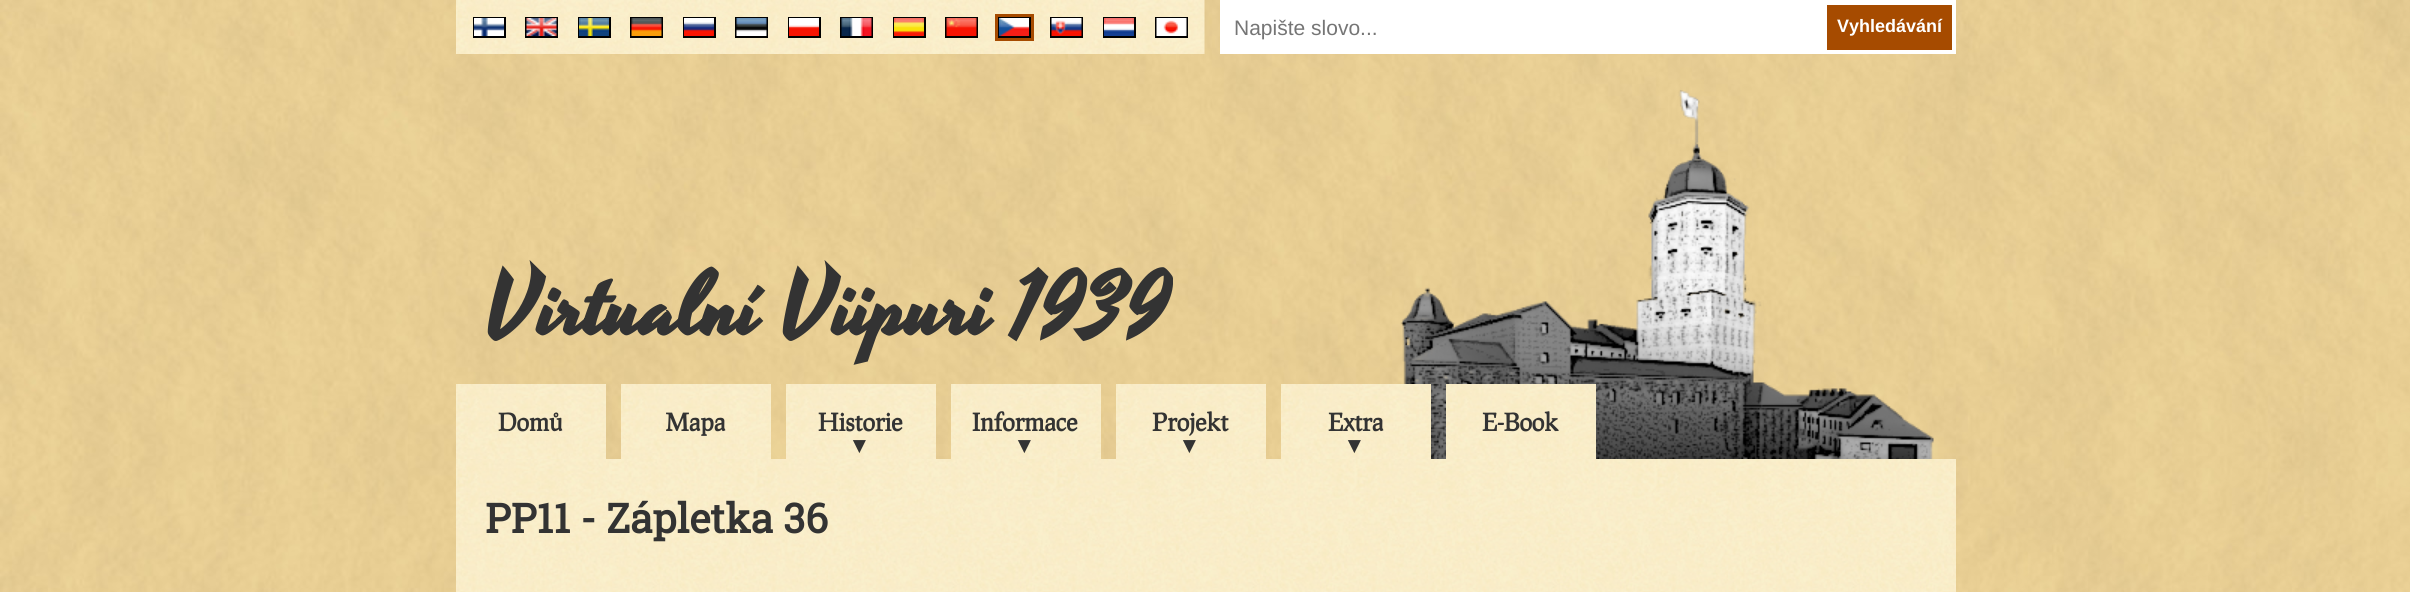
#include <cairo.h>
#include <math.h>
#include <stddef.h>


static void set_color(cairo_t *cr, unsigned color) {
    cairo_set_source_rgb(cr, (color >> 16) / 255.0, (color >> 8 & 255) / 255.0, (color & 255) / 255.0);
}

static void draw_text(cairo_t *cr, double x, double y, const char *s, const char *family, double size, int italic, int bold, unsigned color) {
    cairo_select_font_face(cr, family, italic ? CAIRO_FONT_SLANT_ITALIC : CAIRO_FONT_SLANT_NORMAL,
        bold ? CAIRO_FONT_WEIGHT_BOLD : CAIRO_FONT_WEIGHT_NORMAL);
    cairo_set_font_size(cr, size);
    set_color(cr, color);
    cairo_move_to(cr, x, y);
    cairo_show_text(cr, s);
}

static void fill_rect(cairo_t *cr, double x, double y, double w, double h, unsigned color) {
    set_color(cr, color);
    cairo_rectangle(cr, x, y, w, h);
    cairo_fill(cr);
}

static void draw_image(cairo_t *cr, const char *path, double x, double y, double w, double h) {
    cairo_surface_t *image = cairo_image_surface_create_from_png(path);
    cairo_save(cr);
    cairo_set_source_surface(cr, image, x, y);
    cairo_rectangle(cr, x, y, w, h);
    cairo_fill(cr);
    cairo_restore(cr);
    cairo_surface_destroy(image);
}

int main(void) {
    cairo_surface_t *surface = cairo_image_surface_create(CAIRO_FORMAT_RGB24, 2410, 592);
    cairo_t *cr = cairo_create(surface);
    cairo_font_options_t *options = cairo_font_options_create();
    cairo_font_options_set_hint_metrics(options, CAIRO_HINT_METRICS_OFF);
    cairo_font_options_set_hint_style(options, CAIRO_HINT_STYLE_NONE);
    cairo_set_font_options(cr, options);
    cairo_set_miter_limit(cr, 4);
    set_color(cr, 0xFFFFFF);
    cairo_paint(cr);
    draw_image(cr, "assets/img1.png", 0, 0, 2410, 592);
    draw_image(cr, "assets/img2.png", 456, 0, 749, 54);
    fill_rect(cr, 473, 17, 33, 21, 0x000000);
    draw_image(cr, "assets/img3.png", 474, 18, 30, 18);
    fill_rect(cr, 525, 17, 33, 21, 0x000000);
    draw_image(cr, "assets/img4.png", 526, 18, 31, 18);
    fill_rect(cr, 578, 17, 33, 21, 0x000000);
    draw_image(cr, "assets/img5.png", 579, 18, 30, 18);
    fill_rect(cr, 630, 17, 33, 21, 0x000000);
    draw_image(cr, "assets/img6.png", 631, 18, 31, 18);
    fill_rect(cr, 683, 17, 33, 21, 0x000000);
    draw_image(cr, "assets/img7.png", 684, 18, 30, 18);
    fill_rect(cr, 735, 17, 33, 21, 0x000000);
    draw_image(cr, "assets/img8.png", 736, 18, 31, 18);
    fill_rect(cr, 788, 17, 33, 21, 0x000000);
    draw_image(cr, "assets/img9.png", 789, 18, 30, 18);
    fill_rect(cr, 840, 17, 33, 21, 0x000000);
    draw_image(cr, "assets/img10.png", 841, 18, 31, 18);
    fill_rect(cr, 893, 17, 33, 21, 0x000000);
    draw_image(cr, "assets/img11.png", 894, 18, 30, 18);
    fill_rect(cr, 945, 17, 33, 21, 0x000000);
    draw_image(cr, "assets/img12.png", 946, 18, 31, 18);
    cairo_rectangle(cr, 996.5, 15.5, 36, 24);
    cairo_fill_preserve(cr);
    set_color(cr, 0xA64B00);
    cairo_set_line_width(cr, 3);
    cairo_stroke(cr);
    draw_image(cr, "assets/img13.png", 999, 18, 30, 18);
    fill_rect(cr, 1050, 17, 33, 21, 0x000000);
    draw_image(cr, "assets/img14.png", 1051, 18, 31, 18);
    fill_rect(cr, 1103, 17, 33, 21, 0x000000);
    draw_image(cr, "assets/img15.png", 1104, 18, 30, 18);
    fill_rect(cr, 1155, 17, 33, 21, 0x000000);
    draw_image(cr, "assets/img16.png", 1156, 18, 31, 18);
    fill_rect(cr, 1220, 0, 736, 54, 0xFFFFFF);
    draw_text(cr, 1234, 35, "Napište slovo...", "Liberation Sans", 21, 0, 0, 0x757575);
    fill_rect(cr, 1827, 5, 125, 45, 0xA64B00);
    draw_text(cr, 1837, 32, "Vyhledávání", "Liberation Sans", 18, 0, 1, 0xFFFFFF);
    draw_image(cr, "assets/img17.png", 1400, 90, 534, 369);
    draw_text(cr, 485, 333, "Virtualní Viipuri 1939", "Yesteryear", 90, 0, 1, 0x333333);
    draw_image(cr, "assets/img18.png", 456, 384, 150, 75);
    draw_text(cr, 498, 431, "Domů", "Prociono", 24, 0, 1, 0x333333);
    draw_image(cr, "assets/img19.png", 621, 384, 150, 75);
    draw_text(cr, 666, 431, "Mapa", "Prociono", 24, 0, 1, 0x333333);
    draw_image(cr, "assets/img19.png", 786, 384, 150, 75);
    draw_text(cr, 818, 431, "Historie", "Prociono", 24, 0, 1, 0x333333);
    draw_text(cr, 853, 453, "▾", "DejaVu Sans", 24, 0, 1, 0x333333);
    draw_image(cr, "assets/img19.png", 951, 384, 150, 75);
    draw_text(cr, 972, 431, "Informace", "Prociono", 24, 0, 1, 0x333333);
    draw_text(cr, 1018, 453, "▾", "DejaVu Sans", 24, 0, 1, 0x333333);
    draw_image(cr, "assets/img20.png", 1116, 384, 150, 75);
    draw_text(cr, 1152, 431, "Projekt", "Prociono", 24, 0, 1, 0x333333);
    draw_text(cr, 1183, 453, "▾", "DejaVu Sans", 24, 0, 1, 0x333333);
    draw_image(cr, "assets/img19.png", 1281, 384, 150, 75);
    draw_text(cr, 1328, 431, "Extra", "Prociono", 24, 0, 1, 0x333333);
    draw_text(cr, 1348, 453, "▾", "DejaVu Sans", 24, 0, 1, 0x333333);
    draw_image(cr, "assets/img21.png", 1446, 384, 150, 75);
    draw_text(cr, 1482, 431, "E-Book", "Prociono", 24, 0, 1, 0x333333);
    draw_image(cr, "assets/img22.png", 456, 459, 1500, 133);
    draw_text(cr, 485, 533, "PP11 - Zápletka 36", "Roboto Slab", 40.75, 0, 1, 0x333333);
    cairo_surface_write_to_png(surface, "output.png");
    cairo_font_options_destroy(options);
    cairo_destroy(cr);
    cairo_surface_destroy(surface);
    return 0;
}
